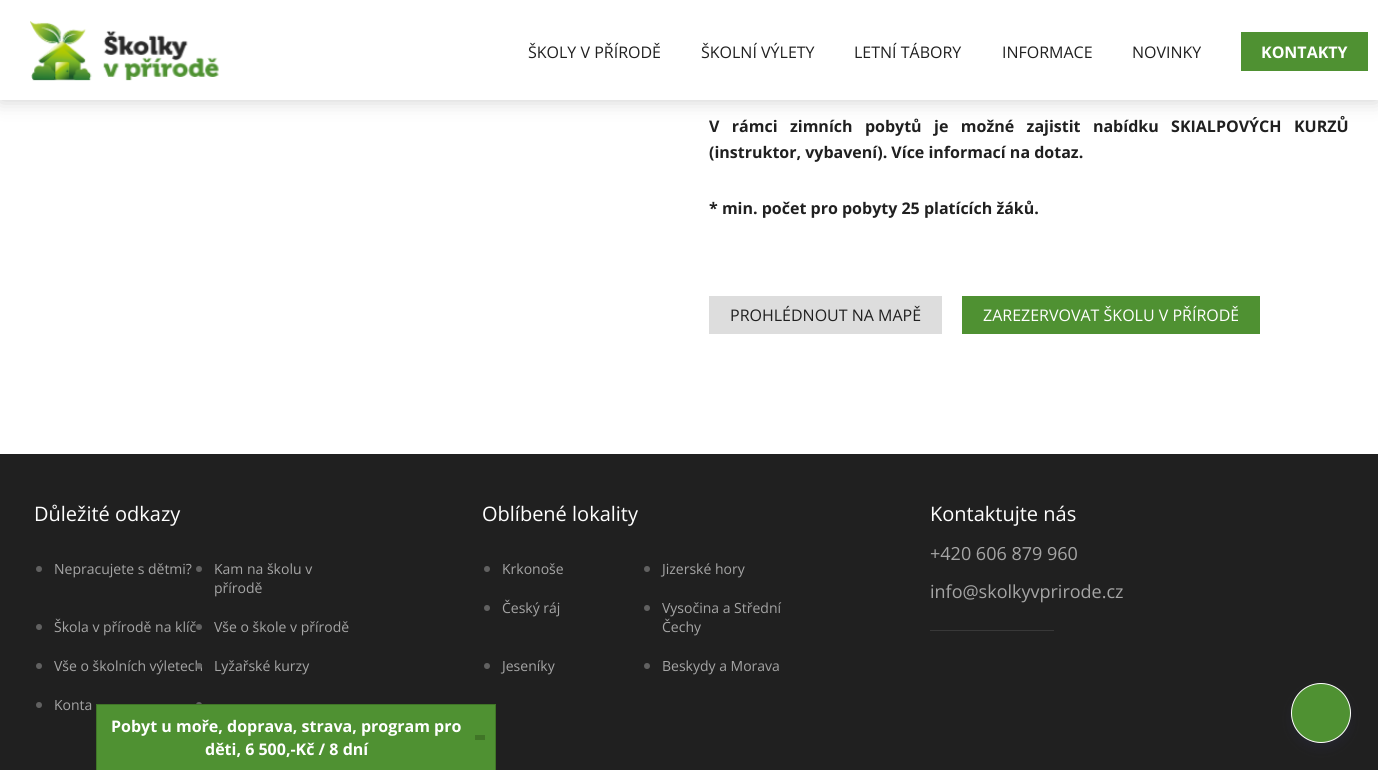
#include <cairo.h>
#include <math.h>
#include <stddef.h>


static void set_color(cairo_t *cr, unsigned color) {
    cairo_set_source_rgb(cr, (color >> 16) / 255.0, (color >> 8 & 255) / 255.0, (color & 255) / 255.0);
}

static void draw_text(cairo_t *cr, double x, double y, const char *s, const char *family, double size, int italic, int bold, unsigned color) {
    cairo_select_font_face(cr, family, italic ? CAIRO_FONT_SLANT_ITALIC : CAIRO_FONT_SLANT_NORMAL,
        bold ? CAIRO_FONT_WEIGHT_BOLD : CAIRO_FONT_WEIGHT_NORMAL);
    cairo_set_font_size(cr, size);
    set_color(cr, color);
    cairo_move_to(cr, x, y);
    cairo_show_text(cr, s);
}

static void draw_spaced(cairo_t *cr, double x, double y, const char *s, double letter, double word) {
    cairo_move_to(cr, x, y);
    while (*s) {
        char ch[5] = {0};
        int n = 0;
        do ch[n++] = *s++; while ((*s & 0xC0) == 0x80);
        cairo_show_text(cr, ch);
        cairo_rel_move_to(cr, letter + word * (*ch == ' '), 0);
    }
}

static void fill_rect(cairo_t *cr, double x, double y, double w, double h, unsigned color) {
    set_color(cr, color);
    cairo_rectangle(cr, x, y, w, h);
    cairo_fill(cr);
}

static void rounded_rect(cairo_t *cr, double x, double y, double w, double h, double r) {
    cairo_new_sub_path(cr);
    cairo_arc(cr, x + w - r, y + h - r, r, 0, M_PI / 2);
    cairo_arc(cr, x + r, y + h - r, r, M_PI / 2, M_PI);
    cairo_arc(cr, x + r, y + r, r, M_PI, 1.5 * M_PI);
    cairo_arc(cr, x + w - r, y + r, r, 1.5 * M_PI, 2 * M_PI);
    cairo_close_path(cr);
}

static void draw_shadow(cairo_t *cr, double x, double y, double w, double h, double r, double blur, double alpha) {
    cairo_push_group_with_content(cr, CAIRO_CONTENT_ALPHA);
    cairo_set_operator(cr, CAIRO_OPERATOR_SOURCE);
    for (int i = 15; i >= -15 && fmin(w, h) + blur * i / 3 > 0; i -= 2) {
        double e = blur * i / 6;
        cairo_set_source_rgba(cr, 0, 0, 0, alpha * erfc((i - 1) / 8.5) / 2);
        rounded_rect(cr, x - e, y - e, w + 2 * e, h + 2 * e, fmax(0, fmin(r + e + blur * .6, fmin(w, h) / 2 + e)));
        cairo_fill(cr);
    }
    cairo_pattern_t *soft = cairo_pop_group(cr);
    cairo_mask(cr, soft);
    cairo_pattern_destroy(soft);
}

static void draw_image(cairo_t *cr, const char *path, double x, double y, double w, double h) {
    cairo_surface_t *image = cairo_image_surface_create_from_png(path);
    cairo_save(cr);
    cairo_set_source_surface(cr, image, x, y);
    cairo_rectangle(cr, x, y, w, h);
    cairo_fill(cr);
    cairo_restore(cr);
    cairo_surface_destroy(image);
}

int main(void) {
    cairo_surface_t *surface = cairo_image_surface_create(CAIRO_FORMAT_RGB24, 1378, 770);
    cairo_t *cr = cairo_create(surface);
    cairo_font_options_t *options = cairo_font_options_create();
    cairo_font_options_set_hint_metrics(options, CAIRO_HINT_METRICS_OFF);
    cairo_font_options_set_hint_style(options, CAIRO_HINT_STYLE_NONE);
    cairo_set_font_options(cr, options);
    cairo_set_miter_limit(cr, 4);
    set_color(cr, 0xFFFFFF);
    cairo_paint(cr);
    set_color(cr, 0x000000);
    draw_shadow(cr, 0, 0, 1378, 100, 0, 10, 0.2);
    fill_rect(cr, 0, 0, 1378, 100, 0xFFFFFF);
    draw_image(cr, "assets/img1.png", 30, 21, 189, 60);
    draw_text(cr, 528, 58, "ŠKOLY V PŘÍRODĚ", "Open Sans", 16, 0, 0, 0x202020);
    draw_text(cr, 701, 58, "ŠKOLNÍ VÝLETY", "Open Sans", 16, 0, 0, 0x202020);
    draw_text(cr, 854, 58, "LETNÍ TÁBORY", "Open Sans", 16, 0, 0, 0x202020);
    draw_text(cr, 1002, 58, "INFORMACE", "Open Sans", 16, 0, 0, 0x202020);
    draw_text(cr, 1132, 58, "NOVINKY", "Open Sans", 16, 0, 0, 0x202020);
    fill_rect(cr, 1241, 32, 127, 39, 0x4F9132);
    draw_text(cr, 1261, 58, "KONTAKTY", "Open Sans", 16, 0, 1, 0xFFFFFF);
    set_color(cr, 0x202020);
    draw_spaced(cr, 709, 132, "V rámci zimních pobytů je možné zajistit nabídku SKIALPOVÝCH KURZŮ", 0, 8.25);
    draw_text(cr, 709, 158, "(instruktor, vybavení). Více informací na dotaz.", "Open Sans", 16, 0, 1, 0x202020);
    draw_text(cr, 709, 214, "* min. počet pro pobyty 25 platících žáků.", "Open Sans", 16, 0, 1, 0x202020);
    fill_rect(cr, 709, 296, 233, 38, 0xDDDDDD);
    draw_text(cr, 730, 321, "PROHLÉDNOUT NA MAPĚ", "Open Sans", 16, 0, 0, 0x202020);
    fill_rect(cr, 962, 296, 298, 38, 0x4F9132);
    draw_text(cr, 983, 321, "ZAREZERVOVAT ŠKOLU V PŘÍRODĚ", "Open Sans", 16, 0, 0, 0xFFFFFF);
    fill_rect(cr, 0, 454, 1378, 316, 0x202020);
    draw_text(cr, 34, 521, "Důležité odkazy", "Open Sans", 20, 0, 0, 0xFFFFFF);
    set_color(cr, 0x616161);
    cairo_new_path(cr);
    cairo_arc(cr, 39, 569, 3, 0, 2 * M_PI);
    cairo_fill(cr);
    draw_text(cr, 54, 574, "Nepracujete s dětmi?", "Open Sans", 14, 0, 0, 0xA5A5A5);
    set_color(cr, 0x616161);
    cairo_new_path(cr);
    cairo_arc(cr, 199, 569, 3, 0, 2 * M_PI);
    cairo_fill(cr);
    draw_text(cr, 214, 574, "Kam na školu v", "Open Sans", 14, 0, 0, 0xA5A5A5);
    draw_text(cr, 214, 593, "přírodě", "Open Sans", 14, 0, 0, 0xA5A5A5);
    set_color(cr, 0x616161);
    cairo_new_path(cr);
    cairo_arc(cr, 39, 627, 3, 0, 2 * M_PI);
    cairo_fill(cr);
    draw_text(cr, 54, 632, "Škola v přírodě na klíč", "Open Sans", 14, 0, 0, 0xA5A5A5);
    set_color(cr, 0x616161);
    cairo_new_path(cr);
    cairo_arc(cr, 199, 627, 3, 0, 2 * M_PI);
    cairo_fill(cr);
    draw_text(cr, 214, 632, "Vše o škole v přírodě", "Open Sans", 14, 0, 0, 0xA5A5A5);
    set_color(cr, 0x616161);
    cairo_new_path(cr);
    cairo_arc(cr, 39, 666, 3, 0, 2 * M_PI);
    cairo_fill(cr);
    draw_text(cr, 54, 671, "Vše o školních výletech", "Open Sans", 14, 0, 0, 0xA5A5A5);
    set_color(cr, 0x616161);
    cairo_new_path(cr);
    cairo_arc(cr, 199, 666, 3, 0, 2 * M_PI);
    cairo_fill(cr);
    draw_text(cr, 214, 671, "Lyžařské kurzy", "Open Sans", 14, 0, 0, 0xA5A5A5);
    set_color(cr, 0x616161);
    cairo_new_path(cr);
    cairo_arc(cr, 39, 705, 3, 0, 2 * M_PI);
    cairo_fill(cr);
    draw_text(cr, 54, 710, "Konta", "Open Sans", 14, 0, 0, 0xA5A5A5);
    set_color(cr, 0x616161);
    cairo_new_path(cr);
    cairo_arc(cr, 199, 705, 3, 0, 2 * M_PI);
    cairo_fill(cr);
    draw_text(cr, 482, 521, "Oblíbené lokality", "Open Sans", 20, 0, 0, 0xFFFFFF);
    set_color(cr, 0x616161);
    cairo_new_path(cr);
    cairo_arc(cr, 487, 569, 3, 0, 2 * M_PI);
    cairo_fill(cr);
    draw_text(cr, 502, 574, "Krkonoše", "Open Sans", 14, 0, 0, 0xA5A5A5);
    set_color(cr, 0x616161);
    cairo_new_path(cr);
    cairo_arc(cr, 647, 569, 3, 0, 2 * M_PI);
    cairo_fill(cr);
    draw_text(cr, 662, 574, "Jizerské hory", "Open Sans", 14, 0, 0, 0xA5A5A5);
    set_color(cr, 0x616161);
    cairo_new_path(cr);
    cairo_arc(cr, 487, 608, 3, 0, 2 * M_PI);
    cairo_fill(cr);
    draw_text(cr, 502, 613, "Český ráj", "Open Sans", 14, 0, 0, 0xA5A5A5);
    set_color(cr, 0x616161);
    cairo_new_path(cr);
    cairo_arc(cr, 647, 608, 3, 0, 2 * M_PI);
    cairo_fill(cr);
    draw_text(cr, 662, 613, "Vysočina a Střední", "Open Sans", 14, 0, 0, 0xA5A5A5);
    draw_text(cr, 662, 632, "Čechy", "Open Sans", 14, 0, 0, 0xA5A5A5);
    set_color(cr, 0x616161);
    cairo_new_path(cr);
    cairo_arc(cr, 487, 666, 3, 0, 2 * M_PI);
    cairo_fill(cr);
    draw_text(cr, 502, 671, "Jeseníky", "Open Sans", 14, 0, 0, 0xA5A5A5);
    set_color(cr, 0x616161);
    cairo_new_path(cr);
    cairo_arc(cr, 647, 666, 3, 0, 2 * M_PI);
    cairo_fill(cr);
    draw_text(cr, 662, 671, "Beskydy a Morava", "Open Sans", 14, 0, 0, 0xA5A5A5);
    draw_text(cr, 930, 521, "Kontaktujte nás", "Open Sans", 20, 0, 0, 0xFFFFFF);
    draw_text(cr, 930, 560, "+420 606 879 960", "Open Sans", 18, 0, 0, 0xA5A5A5);
    draw_text(cr, 930, 598, "info@skolkyvprirode.cz", "Open Sans", 18, 0, 0, 0xA5A5A5);
    fill_rect(cr, 930, 630, 124, 1, 0x383838);
    set_color(cr, 0x32325D);
    draw_shadow(cr, 1293, 691, 56, 56, 28, 6, 0.25);
    set_color(cr, 0x4F9132);
    cairo_arc(cr, 1321, 713, 29.5, 0, 2 * M_PI);
    cairo_fill_preserve(cr);
    set_color(cr, 0xFFFFFF);
    cairo_set_line_width(cr, 1);
    cairo_stroke(cr);
    fill_rect(cr, 97, 705, 398, 65, 0x4F9132);
    fill_rect(cr, 96, 704, 400, 1, 0x407527);
    fill_rect(cr, 495, 704, 1, 66, 0x407527);
    fill_rect(cr, 96, 704, 1, 66, 0x407527);
    draw_text(cr, 111, 732, "Pobyt u moře, doprava, strava, program pro", "Open Sans", 16, 0, 1, 0xFFFFFF);
    fill_rect(cr, 475, 735, 10, 5, 0x407527);
    draw_text(cr, 205, 755, "děti, 6 500,-Kč / 8 dní", "Open Sans", 16, 0, 1, 0xFFFFFF);
    cairo_surface_write_to_png(surface, "output.png");
    cairo_font_options_destroy(options);
    cairo_destroy(cr);
    cairo_surface_destroy(surface);
    return 0;
}
